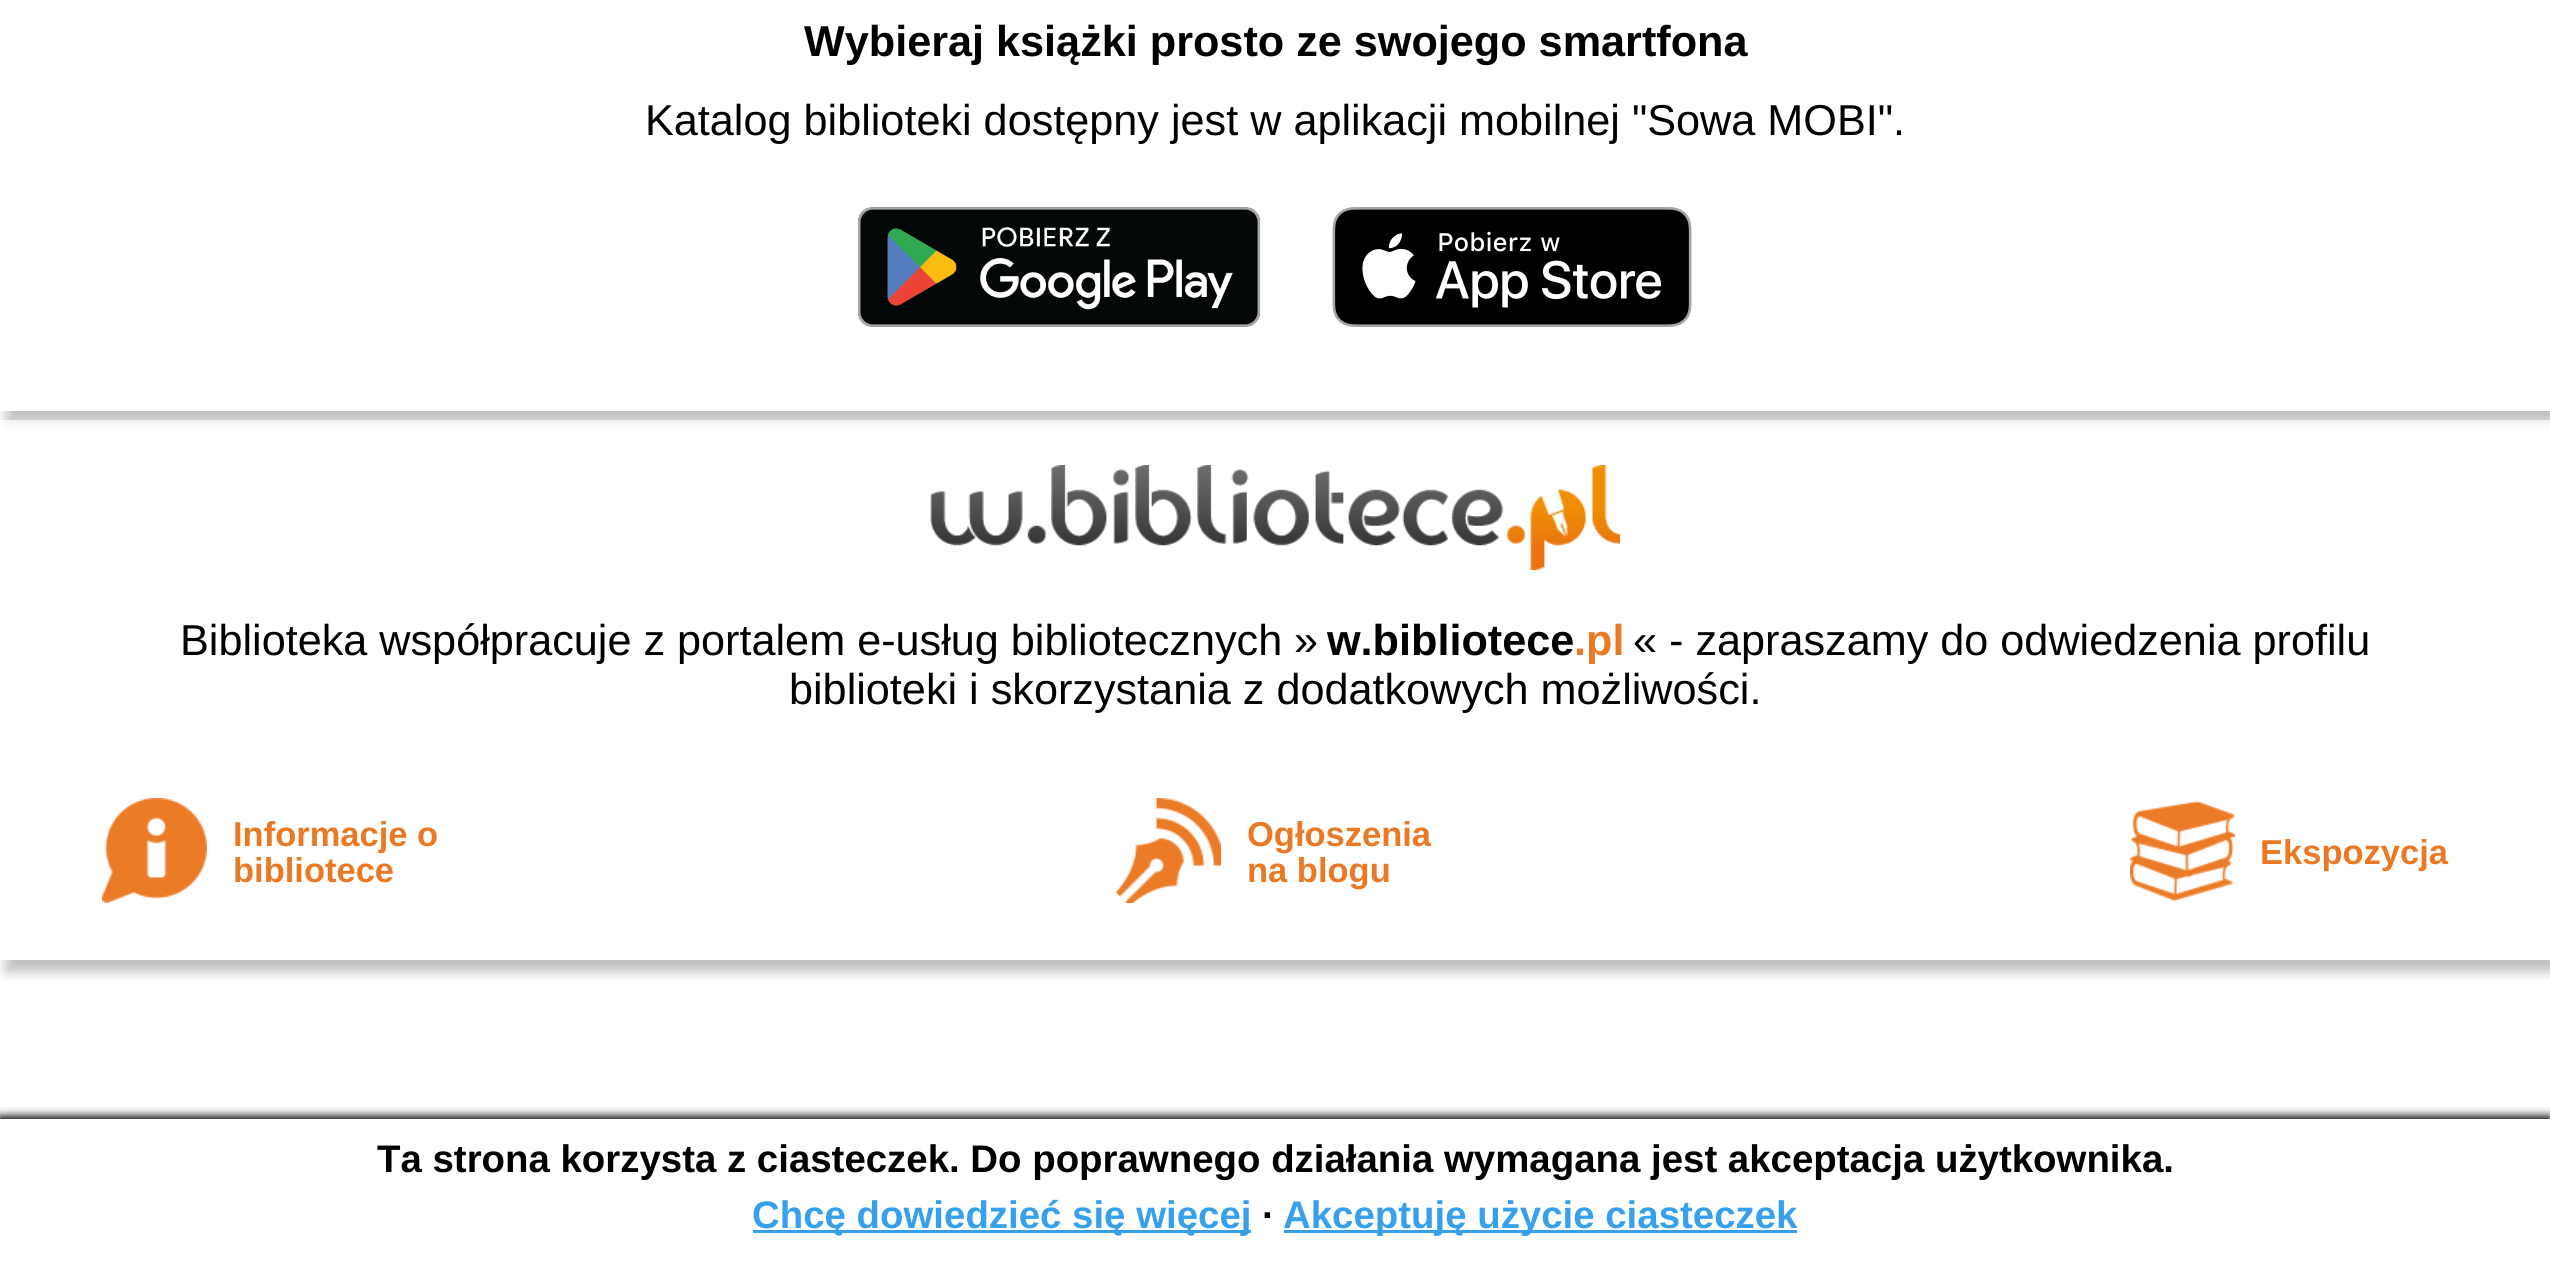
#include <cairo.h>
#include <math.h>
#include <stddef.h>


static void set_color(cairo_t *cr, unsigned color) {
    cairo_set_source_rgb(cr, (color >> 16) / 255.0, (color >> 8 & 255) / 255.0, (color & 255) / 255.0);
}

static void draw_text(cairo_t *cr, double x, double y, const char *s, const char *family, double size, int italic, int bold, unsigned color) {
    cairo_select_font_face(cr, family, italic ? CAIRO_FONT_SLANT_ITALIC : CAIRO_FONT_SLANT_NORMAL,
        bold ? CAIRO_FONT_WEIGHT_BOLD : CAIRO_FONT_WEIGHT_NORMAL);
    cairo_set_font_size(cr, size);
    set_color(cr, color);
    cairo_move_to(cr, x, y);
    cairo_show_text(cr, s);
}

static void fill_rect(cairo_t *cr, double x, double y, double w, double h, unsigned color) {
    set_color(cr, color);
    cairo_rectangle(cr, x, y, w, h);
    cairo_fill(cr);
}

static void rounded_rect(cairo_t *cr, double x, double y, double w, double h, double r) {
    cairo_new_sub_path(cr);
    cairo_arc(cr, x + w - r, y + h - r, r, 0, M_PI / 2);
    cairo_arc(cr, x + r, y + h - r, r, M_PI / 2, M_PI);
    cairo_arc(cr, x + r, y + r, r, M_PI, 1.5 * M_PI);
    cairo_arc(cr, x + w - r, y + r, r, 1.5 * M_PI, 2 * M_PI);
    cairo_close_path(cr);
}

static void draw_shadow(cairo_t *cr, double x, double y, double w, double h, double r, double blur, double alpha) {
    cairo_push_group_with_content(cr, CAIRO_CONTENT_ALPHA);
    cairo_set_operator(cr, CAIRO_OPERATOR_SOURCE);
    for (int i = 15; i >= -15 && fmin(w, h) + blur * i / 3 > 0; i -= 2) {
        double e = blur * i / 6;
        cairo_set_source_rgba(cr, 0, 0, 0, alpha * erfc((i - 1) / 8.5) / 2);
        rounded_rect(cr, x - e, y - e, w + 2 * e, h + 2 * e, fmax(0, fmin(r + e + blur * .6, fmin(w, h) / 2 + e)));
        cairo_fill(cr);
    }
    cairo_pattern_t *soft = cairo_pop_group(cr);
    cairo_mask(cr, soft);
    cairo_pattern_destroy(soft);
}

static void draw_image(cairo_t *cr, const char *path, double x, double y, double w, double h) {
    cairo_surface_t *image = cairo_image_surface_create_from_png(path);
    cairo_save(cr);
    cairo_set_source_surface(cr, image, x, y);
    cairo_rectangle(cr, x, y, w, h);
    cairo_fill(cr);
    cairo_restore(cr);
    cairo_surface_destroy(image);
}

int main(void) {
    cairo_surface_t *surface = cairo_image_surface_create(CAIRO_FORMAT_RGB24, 2550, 1264);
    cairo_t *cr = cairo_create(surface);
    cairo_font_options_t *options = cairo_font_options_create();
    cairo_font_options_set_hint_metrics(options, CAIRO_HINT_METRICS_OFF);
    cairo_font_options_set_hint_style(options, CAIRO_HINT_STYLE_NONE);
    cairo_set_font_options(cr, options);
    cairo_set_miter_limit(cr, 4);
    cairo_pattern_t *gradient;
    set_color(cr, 0xFFFFFF);
    cairo_paint(cr);
    cairo_save(cr);
    cairo_rectangle(cr, 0, 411, 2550, 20);
    cairo_clip(cr);
    set_color(cr, 0x000000);
    draw_shadow(cr, 6, -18, 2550, 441, 0, 6, 0.25);
    cairo_restore(cr);
    draw_text(cr, 804, 56, "Wybieraj książki prosto ze swojego smartfona", "Liberation Sans", 43.2, 0, 1, 0x000000);
    draw_text(cr, 645, 135, "Katalog biblioteki dostępny jest w aplikacji mobilnej \"Sowa MOBI\".", "Liberation Sans", 43.2, 0, 0, 0x000000);
    draw_image(cr, "assets/img1.png", 858, 207, 402, 120);
    draw_image(cr, "assets/img2.png", 1332, 207, 360, 120);
    cairo_save(cr);
    cairo_rectangle(cr, 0, 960, 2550, 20);
    cairo_clip(cr);
    set_color(cr, 0x000000);
    draw_shadow(cr, 6, 432, 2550, 540, 0, 6, 0.25);
    cairo_restore(cr);
    gradient = cairo_pattern_create_linear(1275, 960, 1275, 420);
    cairo_pattern_add_color_stop_rgba(gradient, 0, 1, 1, 1, 1);
    cairo_pattern_add_color_stop_rgba(gradient, 0.5, 1, 1, 1, 1);
    cairo_pattern_add_color_stop_rgba(gradient, 1, 1, 1, 1, 0.7);
    cairo_set_source(cr, gradient);
    cairo_pattern_destroy(gradient);
    cairo_rectangle(cr, 0, 420, 2550, 12);
    cairo_fill(cr);
    draw_image(cr, "assets/img3.png", 930, 465, 690, 105);
    draw_text(cr, 180, 655, "Biblioteka współpracuje z portalem e-usług bibliotecznych", "Liberation Sans", 43.2, 0, 0, 0x000000);
    draw_text(cr, 1294, 655, "»", "Liberation Sans", 43.2, 0, 0, 0x000000);
    draw_text(cr, 1327, 655, "w.bibliotece", "Liberation Sans", 43.2, 0, 1, 0x000000);
    draw_text(cr, 1574, 655, ".pl", "Liberation Sans", 43.2, 0, 1, 0xEB7823);
    draw_text(cr, 1633, 655, "« - zapraszamy do odwiedzenia profilu", "Liberation Sans", 43.2, 0, 0, 0x000000);
    draw_text(cr, 789, 704, "biblioteki i skorzystania z dodatkowych możliwości.", "Liberation Sans", 43.2, 0, 0, 0x000000);
    draw_image(cr, "assets/img4.png", 102, 798, 105, 105);
    draw_text(cr, 233, 846, "Informacje o", "Liberation Sans", 34.5, 0, 1, 0xEB7823);
    draw_text(cr, 233, 882, "bibliotece", "Liberation Sans", 34.5, 0, 1, 0xEB7823);
    draw_image(cr, "assets/img5.png", 1116, 798, 105, 105);
    draw_text(cr, 1247, 846, "Ogłoszenia", "Liberation Sans", 34.5, 0, 1, 0xEB7823);
    draw_text(cr, 1247, 882, "na blogu", "Liberation Sans", 34.5, 0, 1, 0xEB7823);
    draw_image(cr, "assets/img6.png", 2130, 800, 105, 102);
    draw_text(cr, 2260, 864, "Ekspozycja", "Liberation Sans", 34.5, 0, 1, 0xEB7823);
    cairo_save(cr);
    cairo_rectangle(cr, 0, 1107, 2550, 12);
    cairo_clip(cr);
    set_color(cr, 0x000000);
    draw_shadow(cr, 0, 1116, 2550, 147, 0, 4.5, 1);
    cairo_restore(cr);
    draw_text(cr, 377, 1172, "Ta strona korzysta z ciasteczek. Do poprawnego działania wymagana jest akceptacja użytkownika.", "Liberation Sans", 38.4, 0, 1, 0x000000);
    fill_rect(cr, 753, 1230, 498, 3, 0x36A0EC);
    draw_text(cr, 752, 1228, "Chcę dowiedzieć się więcej", "Liberation Sans", 38.4, 0, 1, 0x36A0EC);
    draw_text(cr, 1262, 1228, "∙", "Liberation Sans", 38.4, 0, 1, 0x000000);
    fill_rect(cr, 1284, 1230, 513, 3, 0x36A0EC);
    draw_text(cr, 1283, 1228, "Akceptuję użycie ciasteczek", "Liberation Sans", 38.4, 0, 1, 0x36A0EC);
    cairo_surface_write_to_png(surface, "output.png");
    cairo_font_options_destroy(options);
    cairo_destroy(cr);
    cairo_surface_destroy(surface);
    return 0;
}
